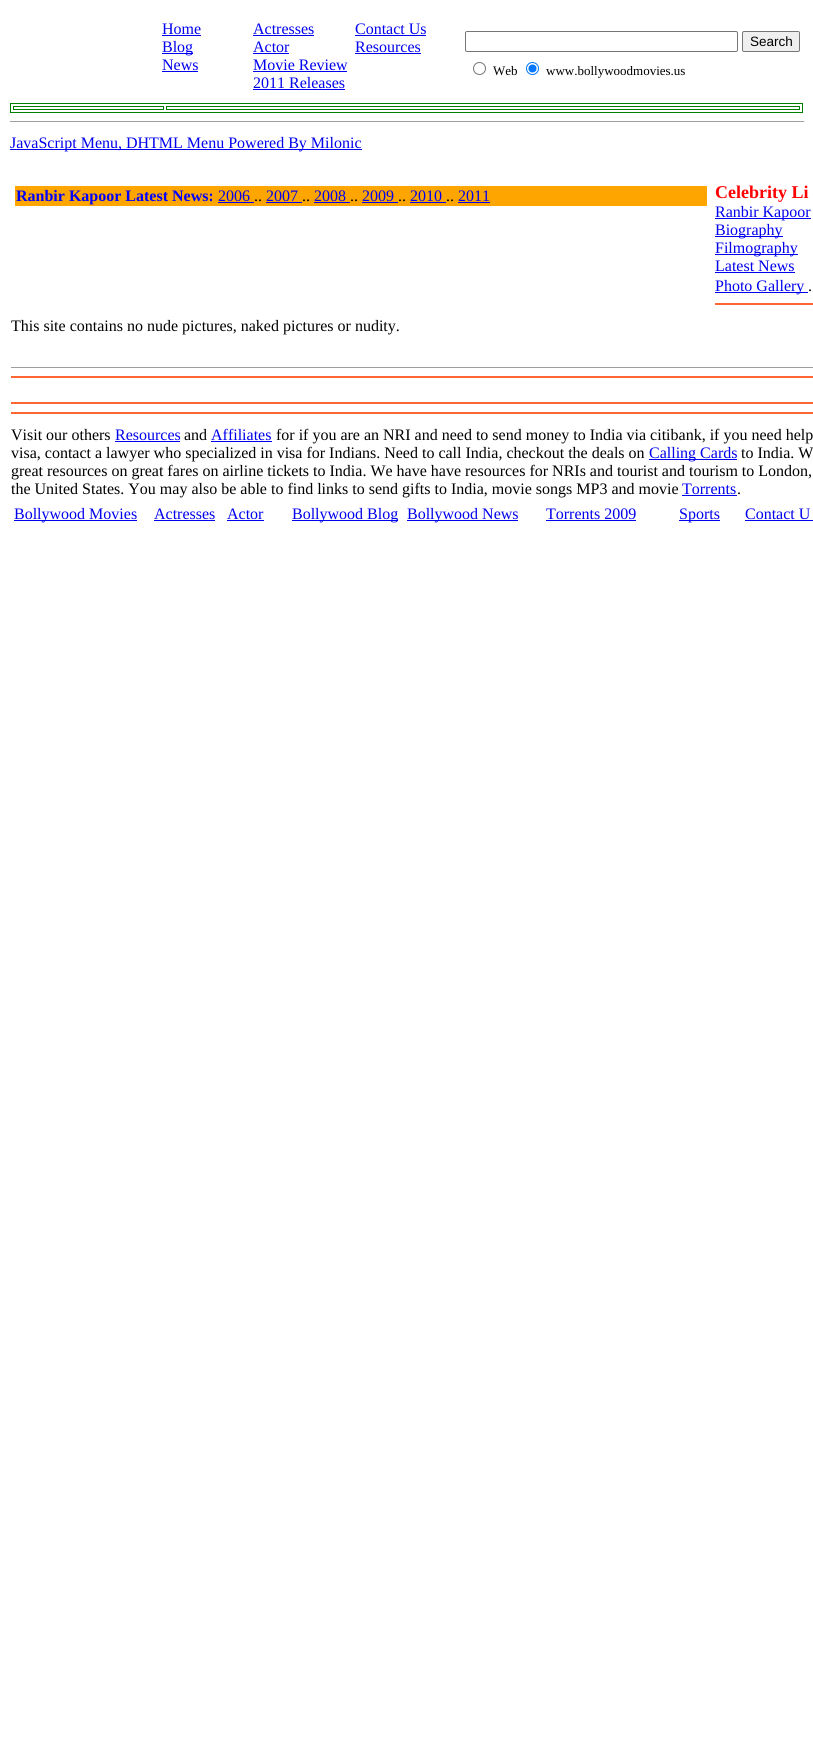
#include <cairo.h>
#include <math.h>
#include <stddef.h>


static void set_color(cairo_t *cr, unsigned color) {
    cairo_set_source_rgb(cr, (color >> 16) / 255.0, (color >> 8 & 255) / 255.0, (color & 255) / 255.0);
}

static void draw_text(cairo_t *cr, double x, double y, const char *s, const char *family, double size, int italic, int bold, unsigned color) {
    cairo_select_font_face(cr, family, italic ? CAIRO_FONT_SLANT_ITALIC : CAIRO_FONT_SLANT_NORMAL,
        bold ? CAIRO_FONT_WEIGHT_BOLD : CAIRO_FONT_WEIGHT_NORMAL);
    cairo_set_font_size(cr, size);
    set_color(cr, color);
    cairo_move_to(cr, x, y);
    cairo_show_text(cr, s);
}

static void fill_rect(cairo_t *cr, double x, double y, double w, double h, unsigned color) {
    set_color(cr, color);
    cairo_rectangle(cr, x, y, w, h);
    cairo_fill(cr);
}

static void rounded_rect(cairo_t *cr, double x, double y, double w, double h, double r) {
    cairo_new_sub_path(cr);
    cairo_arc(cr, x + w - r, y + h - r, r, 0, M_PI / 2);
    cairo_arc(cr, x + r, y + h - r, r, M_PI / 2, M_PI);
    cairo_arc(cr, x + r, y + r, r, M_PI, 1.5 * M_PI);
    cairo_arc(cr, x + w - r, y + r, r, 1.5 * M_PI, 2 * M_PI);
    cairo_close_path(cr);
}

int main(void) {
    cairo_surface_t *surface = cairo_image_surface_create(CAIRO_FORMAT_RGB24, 813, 1746);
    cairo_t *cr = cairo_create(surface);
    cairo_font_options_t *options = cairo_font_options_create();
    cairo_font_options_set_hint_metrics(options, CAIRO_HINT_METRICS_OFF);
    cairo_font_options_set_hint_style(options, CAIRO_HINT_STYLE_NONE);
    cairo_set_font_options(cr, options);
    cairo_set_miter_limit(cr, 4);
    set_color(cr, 0xFFFFFF);
    cairo_paint(cr);
    draw_text(cr, 162, 34, "Home", "Liberation Serif", 16, 0, 0, 0x0000EE);
    fill_rect(cr, 162, 35, 39, 1, 0x0000EE);
    fill_rect(cr, 162, 53, 31, 1, 0x0000EE);
    draw_text(cr, 162, 52, "Blog", "Liberation Serif", 16, 0, 0, 0x0000EE);
    draw_text(cr, 162, 70, "News", "Liberation Serif", 16, 0, 0, 0x0000EE);
    fill_rect(cr, 162, 71, 36, 1, 0x0000EE);
    draw_text(cr, 253, 34, "Actresses", "Liberation Serif", 16, 0, 0, 0x0000EE);
    fill_rect(cr, 253, 35, 61, 1, 0x0000EE);
    draw_text(cr, 253, 52, "Actor", "Liberation Serif", 16, 0, 0, 0x0000EE);
    fill_rect(cr, 253, 53, 36, 1, 0x0000EE);
    draw_text(cr, 253, 70, "Movie Review", "Liberation Serif", 16, 0, 0, 0x0000EE);
    fill_rect(cr, 253, 71, 94, 1, 0x0000EE);
    draw_text(cr, 253, 88, "2011 Releases", "Liberation Serif", 16, 0, 0, 0x0000EE);
    fill_rect(cr, 253, 89, 92, 1, 0x0000EE);
    draw_text(cr, 355, 34, "Contact Us", "Liberation Serif", 16, 0, 0, 0x0000EE);
    fill_rect(cr, 355, 35, 71, 1, 0x0000EE);
    draw_text(cr, 355, 52, "Resources", "Liberation Serif", 16, 0, 0, 0x0000EE);
    fill_rect(cr, 355, 53, 66, 1, 0x0000EE);
    rounded_rect(cr, 465.5, 31.5, 272, 20, 1.5);
    set_color(cr, 0x767676);
    cairo_set_line_width(cr, 1);
    cairo_stroke(cr);
    set_color(cr, 0xEFEFEF);
    rounded_rect(cr, 742.5, 31.5, 57, 20, 1.5);
    cairo_fill_preserve(cr);
    set_color(cr, 0x767676);
    cairo_stroke(cr);
    draw_text(cr, 750, 46, "Search", "Liberation Sans", 13.5, 0, 0, 0x000000);
    cairo_new_path(cr);
    cairo_arc(cr, 479.5, 68.5, 6, 0, 2 * M_PI);
    set_color(cr, 0x767676);
    cairo_stroke(cr);
    draw_text(cr, 493, 75, "Web", "Liberation Serif", 13, 0, 0, 0x000000);
    cairo_new_path(cr);
    cairo_arc(cr, 532.5, 68.5, 6, 0, 2 * M_PI);
    set_color(cr, 0x0075FF);
    cairo_stroke(cr);
    cairo_arc(cr, 532.5, 68.5, 4, 0, 2 * M_PI);
    cairo_fill(cr);
    draw_text(cr, 546, 75, "www.bollywoodmovies.us", "Liberation Serif", 13, 0, 0, 0x000000);
    cairo_rectangle(cr, 10.5, 103.5, 792, 9);
    set_color(cr, 0x008000);
    cairo_stroke(cr);
    cairo_rectangle(cr, 13.5, 106.5, 150, 3);
    cairo_stroke(cr);
    cairo_rectangle(cr, 166.5, 106.5, 633, 3);
    cairo_stroke(cr);
    fill_rect(cr, 10, 121, 795, 1, 0x9F9F9F);
    fill_rect(cr, 804, 121, 1, 1, 0xEEEEEE);
    fill_rect(cr, 10, 149, 352, 1, 0x0000EE);
    draw_text(cr, 10, 148, "JavaScript Menu, DHTML Menu Powered By Milonic", "Liberation Serif", 16, 0, 0, 0x0000EE);
    fill_rect(cr, 15, 186, 692, 20, 0xFFA500);
    draw_text(cr, 16, 201, "Ranbir Kapoor Latest News:", "Liberation Serif", 16, 0, 1, 0x0000FF);
    draw_text(cr, 218, 201, "2006", "Liberation Serif", 16, 0, 0, 0x0000EE);
    fill_rect(cr, 218, 202, 36, 1, 0x0000EE);
    draw_text(cr, 254, 201, "..", "Liberation Serif", 16, 0, 0, 0x000000);
    draw_text(cr, 266, 201, "2007", "Liberation Serif", 16, 0, 0, 0x0000EE);
    fill_rect(cr, 266, 202, 36, 1, 0x0000EE);
    draw_text(cr, 302, 201, "..", "Liberation Serif", 16, 0, 0, 0x000000);
    draw_text(cr, 314, 201, "2008", "Liberation Serif", 16, 0, 0, 0x0000EE);
    fill_rect(cr, 314, 202, 36, 1, 0x0000EE);
    draw_text(cr, 350, 201, "..", "Liberation Serif", 16, 0, 0, 0x000000);
    draw_text(cr, 362, 201, "2009", "Liberation Serif", 16, 0, 0, 0x0000EE);
    fill_rect(cr, 362, 202, 36, 1, 0x0000EE);
    draw_text(cr, 398, 201, "..", "Liberation Serif", 16, 0, 0, 0x000000);
    draw_text(cr, 410, 201, "2010", "Liberation Serif", 16, 0, 0, 0x0000EE);
    fill_rect(cr, 410, 202, 36, 1, 0x0000EE);
    draw_text(cr, 446, 201, "..", "Liberation Serif", 16, 0, 0, 0x000000);
    draw_text(cr, 458, 201, "2011", "Liberation Serif", 16, 0, 0, 0x0000EE);
    fill_rect(cr, 458, 202, 32, 1, 0x0000EE);
    draw_text(cr, 715, 198, "Celebrity Li", "Liberation Serif", 18, 0, 1, 0xFF0000);
    fill_rect(cr, 715, 218, 96, 1, 0x0000EE);
    draw_text(cr, 715, 217, "Ranbir Kapoor", "Liberation Serif", 16, 0, 0, 0x0000EE);
    fill_rect(cr, 715, 236, 68, 1, 0x0000EE);
    draw_text(cr, 715, 235, "Biography", "Liberation Serif", 16, 0, 0, 0x0000EE);
    fill_rect(cr, 715, 254, 83, 1, 0x0000EE);
    draw_text(cr, 715, 253, "Filmography", "Liberation Serif", 16, 0, 0, 0x0000EE);
    draw_text(cr, 715, 271, "Latest News", "Liberation Serif", 16, 0, 0, 0x0000EE);
    fill_rect(cr, 715, 272, 80, 1, 0x0000EE);
    fill_rect(cr, 715, 292, 93, 1, 0x0000EE);
    draw_text(cr, 715, 291, "Photo Gallery", "Liberation Serif", 16, 0, 0, 0x0000EE);
    draw_text(cr, 808, 291, ".", "Liberation Serif", 16, 0, 0, 0x000000);
    fill_rect(cr, 715, 303, 98, 2, 0xFF6633);
    draw_text(cr, 11, 331, "This site contains no nude pictures, naked pictures or nudity.", "Liberation Serif", 16, 0, 0, 0x000000);
    fill_rect(cr, 11, 367, 802, 1, 0x9F9F9F);
    fill_rect(cr, 11, 376, 802, 2, 0xFF6633);
    fill_rect(cr, 11, 402, 802, 2, 0xFF6633);
    fill_rect(cr, 11, 412, 802, 2, 0xFF6633);
    draw_text(cr, 11, 440, "Visit our others", "Liberation Serif", 16, 0, 0, 0x000000);
    draw_text(cr, 115, 440, "Resources", "Liberation Serif", 16, 0, 0, 0x0000EE);
    fill_rect(cr, 115, 441, 65, 1, 0x0000EE);
    draw_text(cr, 184, 440, "and", "Liberation Serif", 16, 0, 0, 0x000000);
    draw_text(cr, 211, 440, "Affiliates", "Liberation Serif", 16, 0, 0, 0x0000EE);
    fill_rect(cr, 211, 441, 61, 1, 0x0000EE);
    draw_text(cr, 276, 440, "for if you are an NRI and need to send money to India via citibank, if you need help", "Liberation Serif", 16, 0, 0, 0x000000);
    draw_text(cr, 11, 458, "visa, contact a lawyer who specialized in visa for Indians. Need to call India, checkout the deals on", "Liberation Serif", 16, 0, 0, 0x000000);
    fill_rect(cr, 649, 459, 88, 1, 0x0000EE);
    draw_text(cr, 649, 458, "Calling Cards", "Liberation Serif", 16, 0, 0, 0x0000EE);
    draw_text(cr, 741, 458, "to India. W", "Liberation Serif", 16, 0, 0, 0x000000);
    draw_text(cr, 11, 476, "great resources on great fares on airline tickets to India. We have have resources for NRIs and tourist and tourism to London,", "Liberation Serif", 16, 0, 0, 0x000000);
    draw_text(cr, 11, 494, "the United States. You may also be able to find links to send gifts to India, movie songs MP3 and movie", "Liberation Serif", 16, 0, 0, 0x000000);
    draw_text(cr, 682, 494, "Torrents", "Liberation Serif", 16, 0, 0, 0x0000EE);
    fill_rect(cr, 682, 495, 55, 1, 0x0000EE);
    draw_text(cr, 737, 494, ".", "Liberation Serif", 16, 0, 0, 0x000000);
    fill_rect(cr, 14, 520, 123, 1, 0x0000EE);
    draw_text(cr, 14, 519, "Bollywood Movies", "Liberation Serif", 16, 0, 0, 0x0000EE);
    draw_text(cr, 154, 519, "Actresses", "Liberation Serif", 16, 0, 0, 0x0000EE);
    fill_rect(cr, 154, 520, 61, 1, 0x0000EE);
    draw_text(cr, 227, 519, "Actor", "Liberation Serif", 16, 0, 0, 0x0000EE);
    fill_rect(cr, 227, 520, 37, 1, 0x0000EE);
    fill_rect(cr, 292, 520, 106, 1, 0x0000EE);
    draw_text(cr, 292, 519, "Bollywood Blog", "Liberation Serif", 16, 0, 0, 0x0000EE);
    fill_rect(cr, 407, 520, 111, 1, 0x0000EE);
    draw_text(cr, 407, 519, "Bollywood News", "Liberation Serif", 16, 0, 0, 0x0000EE);
    draw_text(cr, 546, 519, "Torrents 2009", "Liberation Serif", 16, 0, 0, 0x0000EE);
    fill_rect(cr, 546, 520, 90, 1, 0x0000EE);
    fill_rect(cr, 679, 520, 41, 1, 0x0000EE);
    draw_text(cr, 679, 519, "Sports", "Liberation Serif", 16, 0, 0, 0x0000EE);
    draw_text(cr, 745, 519, "Contact U", "Liberation Serif", 16, 0, 0, 0x0000EE);
    fill_rect(cr, 745, 520, 68, 1, 0x0000EE);
    cairo_surface_write_to_png(surface, "output.png");
    cairo_font_options_destroy(options);
    cairo_destroy(cr);
    cairo_surface_destroy(surface);
    return 0;
}
